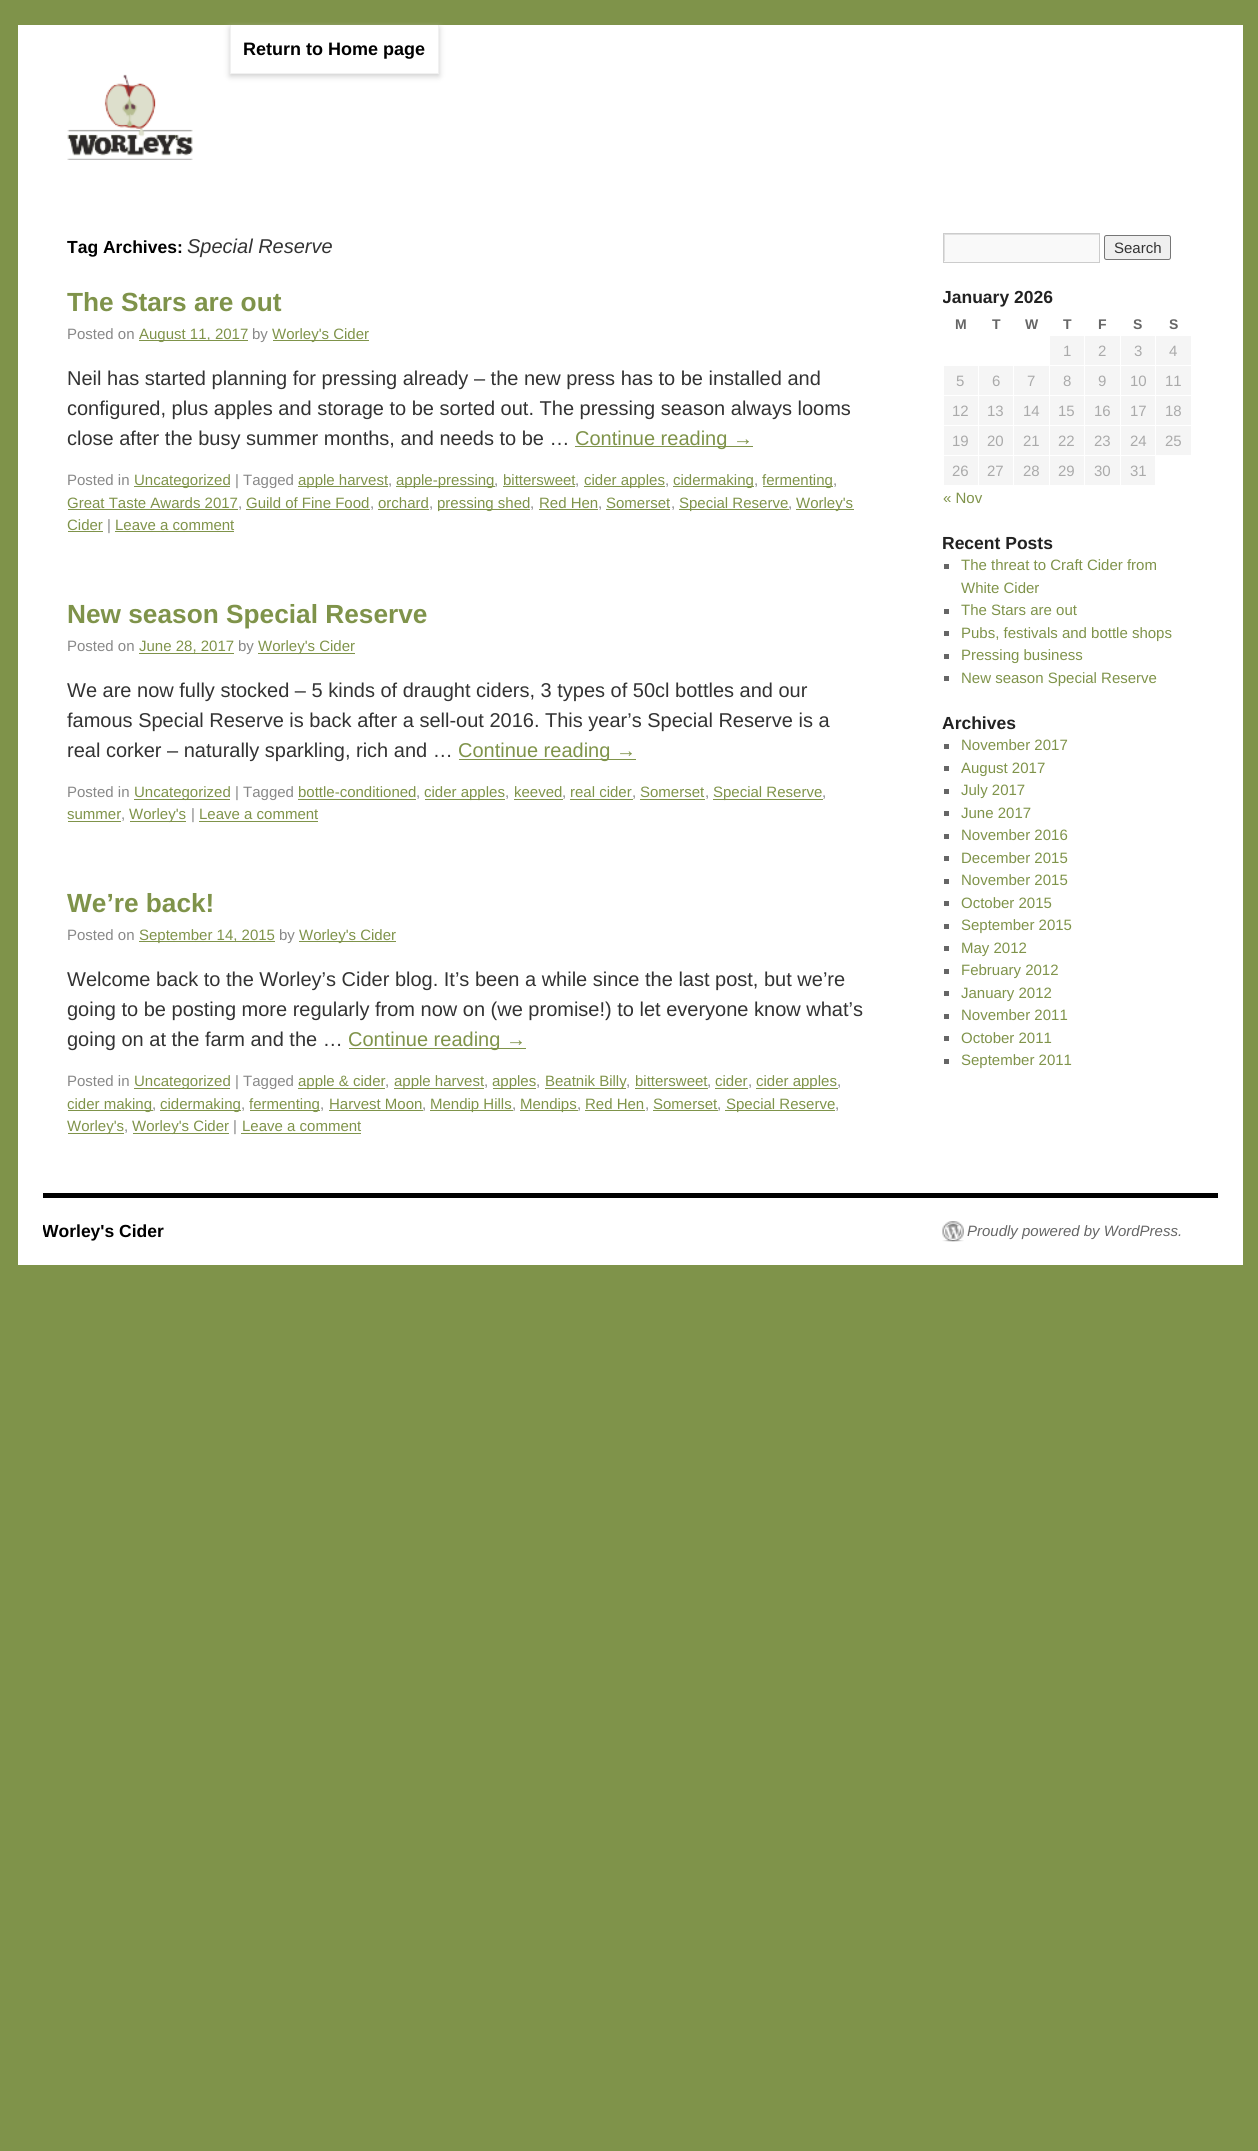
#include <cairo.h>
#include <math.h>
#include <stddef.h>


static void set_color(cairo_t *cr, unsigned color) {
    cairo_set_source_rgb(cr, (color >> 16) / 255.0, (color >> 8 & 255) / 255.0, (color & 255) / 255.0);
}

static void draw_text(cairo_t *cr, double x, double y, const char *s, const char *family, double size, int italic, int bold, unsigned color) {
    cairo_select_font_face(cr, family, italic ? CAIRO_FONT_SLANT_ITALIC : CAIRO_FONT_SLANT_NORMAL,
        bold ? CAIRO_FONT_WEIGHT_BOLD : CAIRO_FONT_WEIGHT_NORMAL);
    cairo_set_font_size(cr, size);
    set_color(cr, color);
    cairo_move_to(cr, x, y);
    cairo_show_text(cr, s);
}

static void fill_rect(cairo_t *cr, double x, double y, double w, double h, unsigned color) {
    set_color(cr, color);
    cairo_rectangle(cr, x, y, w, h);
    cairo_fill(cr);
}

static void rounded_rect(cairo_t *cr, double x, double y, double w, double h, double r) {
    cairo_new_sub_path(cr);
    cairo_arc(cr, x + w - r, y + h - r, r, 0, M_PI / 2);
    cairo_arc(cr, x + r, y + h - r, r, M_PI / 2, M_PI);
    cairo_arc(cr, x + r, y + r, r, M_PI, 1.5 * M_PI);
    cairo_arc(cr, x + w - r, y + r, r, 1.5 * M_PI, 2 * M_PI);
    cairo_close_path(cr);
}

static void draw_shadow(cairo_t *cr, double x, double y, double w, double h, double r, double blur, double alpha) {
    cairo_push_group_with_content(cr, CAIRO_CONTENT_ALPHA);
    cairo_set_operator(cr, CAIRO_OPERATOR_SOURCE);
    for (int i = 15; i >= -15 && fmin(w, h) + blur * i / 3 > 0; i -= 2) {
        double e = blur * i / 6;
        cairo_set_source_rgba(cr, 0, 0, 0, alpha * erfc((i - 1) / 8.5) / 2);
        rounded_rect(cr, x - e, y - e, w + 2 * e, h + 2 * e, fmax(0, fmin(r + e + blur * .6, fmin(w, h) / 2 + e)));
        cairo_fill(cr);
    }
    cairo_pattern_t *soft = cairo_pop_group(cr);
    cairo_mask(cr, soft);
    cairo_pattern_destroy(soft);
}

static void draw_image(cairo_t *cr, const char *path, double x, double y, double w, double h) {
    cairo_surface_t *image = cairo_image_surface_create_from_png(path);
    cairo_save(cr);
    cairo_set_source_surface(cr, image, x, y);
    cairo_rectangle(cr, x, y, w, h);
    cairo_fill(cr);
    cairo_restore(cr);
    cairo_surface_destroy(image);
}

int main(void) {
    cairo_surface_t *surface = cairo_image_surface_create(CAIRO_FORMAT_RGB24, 1258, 2151);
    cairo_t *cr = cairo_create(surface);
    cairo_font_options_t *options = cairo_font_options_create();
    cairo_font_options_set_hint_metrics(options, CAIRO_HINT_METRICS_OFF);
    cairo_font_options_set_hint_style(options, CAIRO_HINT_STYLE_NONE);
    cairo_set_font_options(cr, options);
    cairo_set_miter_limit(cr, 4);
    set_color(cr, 0x7F934A);
    cairo_paint(cr);
    fill_rect(cr, 18, 25, 1225, 1240, 0xFFFFFF);
    cairo_save(cr);
    cairo_set_fill_rule(cr, CAIRO_FILL_RULE_EVEN_ODD);
    cairo_new_path(cr);
    cairo_move_to(cr, 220, 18);
    cairo_line_to(cr, 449, 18);
    cairo_line_to(cr, 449, 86);
    cairo_line_to(cr, 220, 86);
    cairo_close_path(cr);
    cairo_move_to(cr, 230, 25);
    cairo_line_to(cr, 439, 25);
    cairo_line_to(cr, 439, 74);
    cairo_line_to(cr, 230, 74);
    cairo_close_path(cr);
    cairo_clip(cr);
    set_color(cr, 0xCCCCCC);
    draw_shadow(cr, 230, 28, 209, 48, 0, 3, 1);
    cairo_restore(cr);
    fill_rect(cr, 438, 25, 1, 49, 0xF1F1F1);
    fill_rect(cr, 230, 73, 209, 1, 0xF1F1F1);
    fill_rect(cr, 230, 25, 1, 49, 0xF1F1F1);
    draw_text(cr, 243, 55, "Return to Home page", "Liberation Sans", 18, 0, 1, 0x000000);
    draw_image(cr, "assets/img1.png", 67, 74, 126, 86);
    draw_text(cr, 67, 253, "Tag Archives:", "Liberation Sans", 17.5, 0, 1, 0x000000);
    draw_text(cr, 187, 253, "Special Reserve", "Liberation Sans", 20, 1, 0, 0x333333);
    draw_text(cr, 67, 311, "The Stars are out", "Liberation Sans", 26.25, 0, 1, 0x7F934A);
    draw_text(cr, 67, 339, "Posted on", "Liberation Sans", 15, 0, 0, 0x888888);
    fill_rect(cr, 139, 340, 109, 1, 0x7F934A);
    draw_text(cr, 139, 339, "August 11, 2017", "Liberation Sans", 15, 0, 0, 0x7F934A);
    draw_text(cr, 252, 339, "by", "Liberation Sans", 15, 0, 0, 0x888888);
    fill_rect(cr, 273, 340, 96, 1, 0x7F934A);
    draw_text(cr, 272, 339, "Worley's Cider", "Liberation Sans", 15, 0, 0, 0x7F934A);
    draw_text(cr, 67, 385, "Neil has started planning for pressing already – the new press has to be installed and", "Liberation Sans", 20, 0, 0, 0x333333);
    draw_text(cr, 67, 415, "configured, plus apples and storage to be sorted out. The pressing season always looms", "Liberation Sans", 20, 0, 0, 0x333333);
    draw_text(cr, 67, 445, "close after the busy summer months, and needs to be …", "Liberation Sans", 20, 0, 0, 0x333333);
    fill_rect(cr, 575, 446, 178, 1, 0x7F934A);
    draw_text(cr, 575, 445, "Continue reading →", "Liberation Sans", 20, 0, 0, 0x7F934A);
    draw_text(cr, 67, 485, "Posted in", "Liberation Sans", 15, 0, 0, 0x888888);
    fill_rect(cr, 134, 486, 96, 1, 0x7F934A);
    draw_text(cr, 134, 485, "Uncategorized", "Liberation Sans", 15, 0, 0, 0x7F934A);
    draw_text(cr, 235, 485, "| Tagged", "Liberation Sans", 15, 0, 0, 0x888888);
    fill_rect(cr, 298, 486, 90, 1, 0x7F934A);
    draw_text(cr, 298, 485, "apple harvest", "Liberation Sans", 15, 0, 0, 0x7F934A);
    draw_text(cr, 388, 485, ",", "Liberation Sans", 15, 0, 0, 0x888888);
    fill_rect(cr, 396, 486, 99, 1, 0x7F934A);
    draw_text(cr, 396, 485, "apple-pressing", "Liberation Sans", 15, 0, 0, 0x7F934A);
    draw_text(cr, 494, 485, ",", "Liberation Sans", 15, 0, 0, 0x888888);
    draw_text(cr, 503, 485, "bittersweet", "Liberation Sans", 15, 0, 0, 0x7F934A);
    draw_text(cr, 575, 485, ",", "Liberation Sans", 15, 0, 0, 0x888888);
    fill_rect(cr, 503, 486, 72, 1, 0x7F934A);
    fill_rect(cr, 584, 486, 81, 1, 0x7F934A);
    draw_text(cr, 584, 485, "cider apples", "Liberation Sans", 15, 0, 0, 0x7F934A);
    draw_text(cr, 665, 485, ",", "Liberation Sans", 15, 0, 0, 0x888888);
    fill_rect(cr, 673, 486, 81, 1, 0x7F934A);
    draw_text(cr, 673, 485, "cidermaking", "Liberation Sans", 15, 0, 0, 0x7F934A);
    draw_text(cr, 754, 485, ",", "Liberation Sans", 15, 0, 0, 0x888888);
    fill_rect(cr, 763, 486, 70, 1, 0x7F934A);
    draw_text(cr, 762, 485, "fermenting", "Liberation Sans", 15, 0, 0, 0x7F934A);
    draw_text(cr, 833, 485, ",", "Liberation Sans", 15, 0, 0, 0x888888);
    draw_text(cr, 67, 508, "Great Taste Awards 2017", "Liberation Sans", 15, 0, 0, 0x7F934A);
    draw_text(cr, 238, 508, ",", "Liberation Sans", 15, 0, 0, 0x888888);
    fill_rect(cr, 68, 509, 170, 1, 0x7F934A);
    draw_text(cr, 246, 508, "Guild of Fine Food", "Liberation Sans", 15, 0, 0, 0x7F934A);
    draw_text(cr, 370, 508, ",", "Liberation Sans", 15, 0, 0, 0x888888);
    fill_rect(cr, 246, 509, 124, 1, 0x7F934A);
    draw_text(cr, 378, 508, "orchard", "Liberation Sans", 15, 0, 0, 0x7F934A);
    draw_text(cr, 429, 508, ",", "Liberation Sans", 15, 0, 0, 0x888888);
    fill_rect(cr, 378, 509, 51, 1, 0x7F934A);
    fill_rect(cr, 438, 509, 92, 1, 0x7F934A);
    draw_text(cr, 437, 508, "pressing shed", "Liberation Sans", 15, 0, 0, 0x7F934A);
    draw_text(cr, 530, 508, ",", "Liberation Sans", 15, 0, 0, 0x888888);
    draw_text(cr, 539, 508, "Red Hen", "Liberation Sans", 15, 0, 0, 0x7F934A);
    draw_text(cr, 598, 508, ",", "Liberation Sans", 15, 0, 0, 0x888888);
    fill_rect(cr, 539, 509, 59, 1, 0x7F934A);
    draw_text(cr, 606, 508, "Somerset", "Liberation Sans", 15, 0, 0, 0x7F934A);
    draw_text(cr, 671, 508, ",", "Liberation Sans", 15, 0, 0, 0x888888);
    fill_rect(cr, 606, 509, 64, 1, 0x7F934A);
    fill_rect(cr, 679, 509, 110, 1, 0x7F934A);
    draw_text(cr, 679, 508, "Special Reserve", "Liberation Sans", 15, 0, 0, 0x7F934A);
    draw_text(cr, 788, 508, ",", "Liberation Sans", 15, 0, 0, 0x888888);
    fill_rect(cr, 796, 509, 58, 1, 0x7F934A);
    draw_text(cr, 796, 508, "Worley's", "Liberation Sans", 15, 0, 0, 0x7F934A);
    draw_text(cr, 67, 530, "Cider", "Liberation Sans", 15, 0, 0, 0x7F934A);
    fill_rect(cr, 68, 531, 35, 1, 0x7F934A);
    draw_text(cr, 107, 530, "|", "Liberation Sans", 15, 0, 0, 0x888888);
    draw_text(cr, 115, 530, "Leave a comment", "Liberation Sans", 15, 0, 0, 0x7F934A);
    fill_rect(cr, 115, 531, 119, 1, 0x7F934A);
    draw_text(cr, 67, 623, "New season Special Reserve", "Liberation Sans", 26.25, 0, 1, 0x7F934A);
    draw_text(cr, 67, 651, "Posted on", "Liberation Sans", 15, 0, 0, 0x888888);
    draw_text(cr, 139, 651, "June 28, 2017", "Liberation Sans", 15, 0, 0, 0x7F934A);
    fill_rect(cr, 139, 653, 95, 1, 0x7F934A);
    draw_text(cr, 238, 651, "by", "Liberation Sans", 15, 0, 0, 0x888888);
    fill_rect(cr, 258, 653, 97, 1, 0x7F934A);
    draw_text(cr, 258, 651, "Worley's Cider", "Liberation Sans", 15, 0, 0, 0x7F934A);
    draw_text(cr, 67, 697, "We are now fully stocked – 5 kinds of draught ciders, 3 types of 50cl bottles and our", "Liberation Sans", 20, 0, 0, 0x333333);
    draw_text(cr, 67, 727, "famous Special Reserve is back after a sell-out 2016. This year’s Special Reserve is a", "Liberation Sans", 20, 0, 0, 0x333333);
    draw_text(cr, 67, 757, "real corker – naturally sparkling, rich and …", "Liberation Sans", 20, 0, 0, 0x333333);
    fill_rect(cr, 459, 759, 177, 1, 0x7F934A);
    draw_text(cr, 458, 757, "Continue reading →", "Liberation Sans", 20, 0, 0, 0x7F934A);
    draw_text(cr, 67, 797, "Posted in", "Liberation Sans", 15, 0, 0, 0x888888);
    fill_rect(cr, 134, 799, 96, 1, 0x7F934A);
    draw_text(cr, 134, 797, "Uncategorized", "Liberation Sans", 15, 0, 0, 0x7F934A);
    draw_text(cr, 235, 797, "| Tagged", "Liberation Sans", 15, 0, 0, 0x888888);
    draw_text(cr, 298, 797, "bottle-conditioned", "Liberation Sans", 15, 0, 0, 0x7F934A);
    draw_text(cr, 416, 797, ",", "Liberation Sans", 15, 0, 0, 0x888888);
    fill_rect(cr, 298, 799, 118, 1, 0x7F934A);
    fill_rect(cr, 425, 799, 80, 1, 0x7F934A);
    draw_text(cr, 424, 797, "cider apples", "Liberation Sans", 15, 0, 0, 0x7F934A);
    draw_text(cr, 505, 797, ",", "Liberation Sans", 15, 0, 0, 0x888888);
    draw_text(cr, 514, 797, "keeved", "Liberation Sans", 15, 0, 0, 0x7F934A);
    draw_text(cr, 562, 797, ",", "Liberation Sans", 15, 0, 0, 0x888888);
    fill_rect(cr, 514, 799, 49, 1, 0x7F934A);
    draw_text(cr, 570, 797, "real cider", "Liberation Sans", 15, 0, 0, 0x7F934A);
    draw_text(cr, 632, 797, ",", "Liberation Sans", 15, 0, 0, 0x888888);
    fill_rect(cr, 570, 799, 63, 1, 0x7F934A);
    draw_text(cr, 640, 797, "Somerset", "Liberation Sans", 15, 0, 0, 0x7F934A);
    draw_text(cr, 705, 797, ",", "Liberation Sans", 15, 0, 0, 0x888888);
    fill_rect(cr, 640, 799, 65, 1, 0x7F934A);
    fill_rect(cr, 713, 799, 110, 1, 0x7F934A);
    draw_text(cr, 713, 797, "Special Reserve", "Liberation Sans", 15, 0, 0, 0x7F934A);
    draw_text(cr, 822, 797, ",", "Liberation Sans", 15, 0, 0, 0x888888);
    draw_text(cr, 67, 819, "summer", "Liberation Sans", 15, 0, 0, 0x7F934A);
    draw_text(cr, 121, 819, ",", "Liberation Sans", 15, 0, 0, 0x888888);
    fill_rect(cr, 68, 821, 53, 1, 0x7F934A);
    fill_rect(cr, 130, 821, 56, 1, 0x7F934A);
    draw_text(cr, 129, 819, "Worley's", "Liberation Sans", 15, 0, 0, 0x7F934A);
    draw_text(cr, 191, 819, "|", "Liberation Sans", 15, 0, 0, 0x888888);
    draw_text(cr, 199, 819, "Leave a comment", "Liberation Sans", 15, 0, 0, 0x7F934A);
    fill_rect(cr, 199, 821, 119, 1, 0x7F934A);
    draw_text(cr, 67, 912, "We’re back!", "Liberation Sans", 26.25, 0, 1, 0x7F934A);
    draw_text(cr, 67, 940, "Posted on", "Liberation Sans", 15, 0, 0, 0x888888);
    fill_rect(cr, 139, 941, 136, 1, 0x7F934A);
    draw_text(cr, 139, 940, "September 14, 2015", "Liberation Sans", 15, 0, 0, 0x7F934A);
    draw_text(cr, 279, 940, "by", "Liberation Sans", 15, 0, 0, 0x888888);
    fill_rect(cr, 299, 941, 97, 1, 0x7F934A);
    draw_text(cr, 299, 940, "Worley's Cider", "Liberation Sans", 15, 0, 0, 0x7F934A);
    draw_text(cr, 67, 986, "Welcome back to the Worley’s Cider blog. It’s been a while since the last post, but we’re", "Liberation Sans", 20, 0, 0, 0x333333);
    draw_text(cr, 67, 1016, "going to be posting more regularly from now on (we promise!) to let everyone know what’s", "Liberation Sans", 20, 0, 0, 0x333333);
    draw_text(cr, 67, 1046, "going on at the farm and the …", "Liberation Sans", 20, 0, 0, 0x333333);
    fill_rect(cr, 349, 1048, 177, 1, 0x7F934A);
    draw_text(cr, 348, 1046, "Continue reading →", "Liberation Sans", 20, 0, 0, 0x7F934A);
    draw_text(cr, 67, 1086, "Posted in", "Liberation Sans", 15, 0, 0, 0x888888);
    fill_rect(cr, 134, 1088, 96, 1, 0x7F934A);
    draw_text(cr, 134, 1086, "Uncategorized", "Liberation Sans", 15, 0, 0, 0x7F934A);
    draw_text(cr, 235, 1086, "| Tagged", "Liberation Sans", 15, 0, 0, 0x888888);
    fill_rect(cr, 298, 1088, 87, 1, 0x7F934A);
    draw_text(cr, 298, 1086, "apple & cider", "Liberation Sans", 15, 0, 0, 0x7F934A);
    draw_text(cr, 385, 1086, ",", "Liberation Sans", 15, 0, 0, 0x888888);
    fill_rect(cr, 394, 1088, 90, 1, 0x7F934A);
    draw_text(cr, 394, 1086, "apple harvest", "Liberation Sans", 15, 0, 0, 0x7F934A);
    draw_text(cr, 484, 1086, ",", "Liberation Sans", 15, 0, 0, 0x888888);
    fill_rect(cr, 493, 1088, 43, 1, 0x7F934A);
    draw_text(cr, 492, 1086, "apples", "Liberation Sans", 15, 0, 0, 0x7F934A);
    draw_text(cr, 536, 1086, ",", "Liberation Sans", 15, 0, 0, 0x888888);
    fill_rect(cr, 545, 1088, 81, 1, 0x7F934A);
    draw_text(cr, 545, 1086, "Beatnik Billy", "Liberation Sans", 15, 0, 0, 0x7F934A);
    draw_text(cr, 626, 1086, ",", "Liberation Sans", 15, 0, 0, 0x888888);
    draw_text(cr, 635, 1086, "bittersweet", "Liberation Sans", 15, 0, 0, 0x7F934A);
    draw_text(cr, 707, 1086, ",", "Liberation Sans", 15, 0, 0, 0x888888);
    fill_rect(cr, 635, 1088, 73, 1, 0x7F934A);
    draw_text(cr, 715, 1086, "cider", "Liberation Sans", 15, 0, 0, 0x7F934A);
    draw_text(cr, 748, 1086, ",", "Liberation Sans", 15, 0, 0, 0x888888);
    fill_rect(cr, 715, 1088, 33, 1, 0x7F934A);
    fill_rect(cr, 756, 1088, 82, 1, 0x7F934A);
    draw_text(cr, 756, 1086, "cider apples", "Liberation Sans", 15, 0, 0, 0x7F934A);
    draw_text(cr, 837, 1086, ",", "Liberation Sans", 15, 0, 0, 0x888888);
    fill_rect(cr, 68, 1110, 85, 1, 0x7F934A);
    draw_text(cr, 67, 1109, "cider making", "Liberation Sans", 15, 0, 0, 0x7F934A);
    draw_text(cr, 152, 1109, ",", "Liberation Sans", 15, 0, 0, 0x888888);
    fill_rect(cr, 160, 1110, 81, 1, 0x7F934A);
    draw_text(cr, 160, 1109, "cidermaking", "Liberation Sans", 15, 0, 0, 0x7F934A);
    draw_text(cr, 241, 1109, ",", "Liberation Sans", 15, 0, 0, 0x888888);
    fill_rect(cr, 250, 1110, 70, 1, 0x7F934A);
    draw_text(cr, 249, 1109, "fermenting", "Liberation Sans", 15, 0, 0, 0x7F934A);
    draw_text(cr, 320, 1109, ",", "Liberation Sans", 15, 0, 0, 0x888888);
    draw_text(cr, 329, 1109, "Harvest Moon", "Liberation Sans", 15, 0, 0, 0x7F934A);
    draw_text(cr, 422, 1109, ",", "Liberation Sans", 15, 0, 0, 0x888888);
    fill_rect(cr, 329, 1110, 94, 1, 0x7F934A);
    fill_rect(cr, 430, 1110, 83, 1, 0x7F934A);
    draw_text(cr, 430, 1109, "Mendip Hills", "Liberation Sans", 15, 0, 0, 0x7F934A);
    draw_text(cr, 512, 1109, ",", "Liberation Sans", 15, 0, 0, 0x888888);
    fill_rect(cr, 520, 1110, 58, 1, 0x7F934A);
    draw_text(cr, 520, 1109, "Mendips", "Liberation Sans", 15, 0, 0, 0x7F934A);
    draw_text(cr, 577, 1109, ",", "Liberation Sans", 15, 0, 0, 0x888888);
    draw_text(cr, 585, 1109, "Red Hen", "Liberation Sans", 15, 0, 0, 0x7F934A);
    draw_text(cr, 645, 1109, ",", "Liberation Sans", 15, 0, 0, 0x888888);
    fill_rect(cr, 585, 1110, 60, 1, 0x7F934A);
    draw_text(cr, 653, 1109, "Somerset", "Liberation Sans", 15, 0, 0, 0x7F934A);
    draw_text(cr, 717, 1109, ",", "Liberation Sans", 15, 0, 0, 0x888888);
    fill_rect(cr, 653, 1110, 65, 1, 0x7F934A);
    fill_rect(cr, 725, 1110, 110, 1, 0x7F934A);
    draw_text(cr, 726, 1109, "Special Reserve", "Liberation Sans", 15, 0, 0, 0x7F934A);
    draw_text(cr, 835, 1109, ",", "Liberation Sans", 15, 0, 0, 0x888888);
    fill_rect(cr, 68, 1133, 56, 1, 0x7F934A);
    draw_text(cr, 67, 1131, "Worley's", "Liberation Sans", 15, 0, 0, 0x7F934A);
    draw_text(cr, 124, 1131, ",", "Liberation Sans", 15, 0, 0, 0x888888);
    fill_rect(cr, 133, 1133, 96, 1, 0x7F934A);
    draw_text(cr, 132, 1131, "Worley's Cider", "Liberation Sans", 15, 0, 0, 0x7F934A);
    draw_text(cr, 233, 1131, "|", "Liberation Sans", 15, 0, 0, 0x888888);
    draw_text(cr, 242, 1131, "Leave a comment", "Liberation Sans", 15, 0, 0, 0x7F934A);
    fill_rect(cr, 241, 1133, 120, 1, 0x7F934A);
    fill_rect(cr, 944, 235, 155, 27, 0xF9F9F9);
    cairo_save(cr);
    cairo_rectangle(cr, 944, 234, 155, 27);
    cairo_clip(cr);
    set_color(cr, 0xE0E0E0);
    cairo_set_fill_rule(cr, CAIRO_FILL_RULE_EVEN_ODD);
    cairo_new_path(cr);
    cairo_move_to(cr, 820, 110);
    cairo_line_to(cr, 1222, 110);
    cairo_line_to(cr, 1222, 385);
    cairo_line_to(cr, 820, 385);
    cairo_close_path(cr);
    cairo_move_to(cr, 945, 235);
    cairo_line_to(cr, 1100, 235);
    cairo_line_to(cr, 1100, 262);
    cairo_line_to(cr, 945, 262);
    cairo_close_path(cr);
    cairo_fill(cr);
    cairo_restore(cr);
    cairo_rectangle(cr, 943.5, 233.5, 156, 29);
    set_color(cr, 0xCCCCCC);
    cairo_set_line_width(cr, 1);
    cairo_stroke(cr);
    set_color(cr, 0xEFEFEF);
    rounded_rect(cr, 1104.5, 235.5, 66, 24, 2);
    cairo_fill_preserve(cr);
    set_color(cr, 0x767676);
    cairo_stroke(cr);
    draw_text(cr, 1114, 253, "Search", "Liberation Sans", 15, 0, 0, 0x333333);
    cairo_save(cr);
    cairo_rectangle(cr, 943, 233, 275, 861);
    cairo_clip(cr);
    draw_text(cr, 942, 303, "January 2026", "Liberation Sans", 17.5, 0, 1, 0x222222);
    cairo_restore(cr);
    draw_text(cr, 955, 329, "M", "Liberation Sans", 14, 0, 1, 0x666666);
    draw_text(cr, 992, 329, "T", "Liberation Sans", 14, 0, 1, 0x666666);
    draw_text(cr, 1025, 329, "W", "Liberation Sans", 14, 0, 1, 0x666666);
    draw_text(cr, 1063, 329, "T", "Liberation Sans", 14, 0, 1, 0x666666);
    draw_text(cr, 1098, 329, "F", "Liberation Sans", 14, 0, 1, 0x666666);
    draw_text(cr, 1133, 329, "S", "Liberation Sans", 14, 0, 1, 0x666666);
    draw_text(cr, 1169, 329, "S", "Liberation Sans", 14, 0, 1, 0x666666);
    fill_rect(cr, 1050, 336, 34, 29, 0xF5F5F5);
    draw_text(cr, 1063, 356, "1", "Liberation Sans", 15, 0, 0, 0xAAAAAA);
    fill_rect(cr, 1085, 336, 35, 29, 0xF5F5F5);
    draw_text(cr, 1098, 356, "2", "Liberation Sans", 15, 0, 0, 0xAAAAAA);
    fill_rect(cr, 1121, 336, 34, 29, 0xF5F5F5);
    draw_text(cr, 1134, 356, "3", "Liberation Sans", 15, 0, 0, 0xAAAAAA);
    fill_rect(cr, 1156, 336, 35, 29, 0xF5F5F5);
    draw_text(cr, 1169, 356, "4", "Liberation Sans", 15, 0, 0, 0xAAAAAA);
    fill_rect(cr, 944, 366, 34, 29, 0xF5F5F5);
    draw_text(cr, 956, 386, "5", "Liberation Sans", 15, 0, 0, 0xAAAAAA);
    fill_rect(cr, 979, 366, 34, 29, 0xF5F5F5);
    draw_text(cr, 992, 386, "6", "Liberation Sans", 15, 0, 0, 0xAAAAAA);
    fill_rect(cr, 1014, 366, 35, 29, 0xF5F5F5);
    draw_text(cr, 1027, 386, "7", "Liberation Sans", 15, 0, 0, 0xAAAAAA);
    fill_rect(cr, 1050, 366, 34, 29, 0xF5F5F5);
    draw_text(cr, 1063, 386, "8", "Liberation Sans", 15, 0, 0, 0xAAAAAA);
    fill_rect(cr, 1085, 366, 35, 29, 0xF5F5F5);
    draw_text(cr, 1098, 386, "9", "Liberation Sans", 15, 0, 0, 0xAAAAAA);
    fill_rect(cr, 1121, 366, 34, 29, 0xF5F5F5);
    draw_text(cr, 1130, 386, "10", "Liberation Sans", 15, 0, 0, 0xAAAAAA);
    fill_rect(cr, 1156, 366, 35, 29, 0xF5F5F5);
    draw_text(cr, 1165, 386, "11", "Liberation Sans", 15, 0, 0, 0xAAAAAA);
    fill_rect(cr, 944, 396, 34, 29, 0xF5F5F5);
    draw_text(cr, 952, 416, "12", "Liberation Sans", 15, 0, 0, 0xAAAAAA);
    fill_rect(cr, 979, 396, 34, 29, 0xF5F5F5);
    draw_text(cr, 987, 416, "13", "Liberation Sans", 15, 0, 0, 0xAAAAAA);
    fill_rect(cr, 1014, 396, 35, 29, 0xF5F5F5);
    draw_text(cr, 1023, 416, "14", "Liberation Sans", 15, 0, 0, 0xAAAAAA);
    fill_rect(cr, 1050, 396, 34, 29, 0xF5F5F5);
    draw_text(cr, 1058, 416, "15", "Liberation Sans", 15, 0, 0, 0xAAAAAA);
    fill_rect(cr, 1085, 396, 35, 29, 0xF5F5F5);
    draw_text(cr, 1094, 416, "16", "Liberation Sans", 15, 0, 0, 0xAAAAAA);
    fill_rect(cr, 1121, 396, 34, 29, 0xF5F5F5);
    draw_text(cr, 1130, 416, "17", "Liberation Sans", 15, 0, 0, 0xAAAAAA);
    fill_rect(cr, 1156, 396, 35, 29, 0xF5F5F5);
    draw_text(cr, 1165, 416, "18", "Liberation Sans", 15, 0, 0, 0xAAAAAA);
    fill_rect(cr, 944, 426, 34, 29, 0xF5F5F5);
    draw_text(cr, 952, 446, "19", "Liberation Sans", 15, 0, 0, 0xAAAAAA);
    fill_rect(cr, 979, 426, 34, 29, 0xF5F5F5);
    draw_text(cr, 987, 446, "20", "Liberation Sans", 15, 0, 0, 0xAAAAAA);
    fill_rect(cr, 1014, 426, 35, 29, 0xF5F5F5);
    draw_text(cr, 1023, 446, "21", "Liberation Sans", 15, 0, 0, 0xAAAAAA);
    fill_rect(cr, 1050, 426, 34, 29, 0xF5F5F5);
    draw_text(cr, 1058, 446, "22", "Liberation Sans", 15, 0, 0, 0xAAAAAA);
    fill_rect(cr, 1085, 426, 35, 29, 0xF5F5F5);
    draw_text(cr, 1094, 446, "23", "Liberation Sans", 15, 0, 0, 0xAAAAAA);
    fill_rect(cr, 1121, 426, 34, 29, 0xF5F5F5);
    draw_text(cr, 1130, 446, "24", "Liberation Sans", 15, 0, 0, 0xAAAAAA);
    fill_rect(cr, 1156, 426, 35, 29, 0xF5F5F5);
    draw_text(cr, 1165, 446, "25", "Liberation Sans", 15, 0, 0, 0xAAAAAA);
    fill_rect(cr, 944, 456, 34, 29, 0xF5F5F5);
    draw_text(cr, 952, 476, "26", "Liberation Sans", 15, 0, 0, 0xAAAAAA);
    fill_rect(cr, 979, 456, 34, 29, 0xF5F5F5);
    draw_text(cr, 987, 476, "27", "Liberation Sans", 15, 0, 0, 0xAAAAAA);
    fill_rect(cr, 1014, 456, 35, 29, 0xF5F5F5);
    draw_text(cr, 1023, 476, "28", "Liberation Sans", 15, 0, 0, 0xAAAAAA);
    fill_rect(cr, 1050, 456, 34, 29, 0xF5F5F5);
    draw_text(cr, 1058, 476, "29", "Liberation Sans", 15, 0, 0, 0xAAAAAA);
    fill_rect(cr, 1085, 456, 35, 29, 0xF5F5F5);
    draw_text(cr, 1094, 476, "30", "Liberation Sans", 15, 0, 0, 0xAAAAAA);
    fill_rect(cr, 1121, 456, 34, 29, 0xF5F5F5);
    draw_text(cr, 1130, 476, "31", "Liberation Sans", 15, 0, 0, 0xAAAAAA);
    draw_text(cr, 943, 503, "« Nov", "Liberation Sans", 15, 0, 0, 0x7F934A);
    draw_text(cr, 942, 549, "Recent Posts", "Liberation Sans", 17.5, 0, 1, 0x222222);
    fill_rect(cr, 944, 564, 5, 5, 0x666666);
    draw_text(cr, 961, 570, "The threat to Craft Cider from", "Liberation Sans", 15, 0, 0, 0x7F934A);
    draw_text(cr, 961, 593, "White Cider", "Liberation Sans", 15, 0, 0, 0x7F934A);
    fill_rect(cr, 944, 609, 5, 5, 0x666666);
    draw_text(cr, 961, 615, "The Stars are out", "Liberation Sans", 15, 0, 0, 0x7F934A);
    fill_rect(cr, 944, 631, 5, 5, 0x666666);
    draw_text(cr, 961, 638, "Pubs, festivals and bottle shops", "Liberation Sans", 15, 0, 0, 0x7F934A);
    fill_rect(cr, 944, 654, 5, 5, 0x666666);
    draw_text(cr, 961, 660, "Pressing business", "Liberation Sans", 15, 0, 0, 0x7F934A);
    fill_rect(cr, 944, 676, 5, 5, 0x666666);
    draw_text(cr, 961, 683, "New season Special Reserve", "Liberation Sans", 15, 0, 0, 0x7F934A);
    draw_text(cr, 942, 729, "Archives", "Liberation Sans", 17.5, 0, 1, 0x222222);
    fill_rect(cr, 944, 744, 5, 5, 0x666666);
    draw_text(cr, 961, 750, "November 2017", "Liberation Sans", 15, 0, 0, 0x7F934A);
    fill_rect(cr, 944, 766, 5, 5, 0x666666);
    draw_text(cr, 961, 773, "August 2017", "Liberation Sans", 15, 0, 0, 0x7F934A);
    fill_rect(cr, 944, 789, 5, 5, 0x666666);
    draw_text(cr, 961, 795, "July 2017", "Liberation Sans", 15, 0, 0, 0x7F934A);
    fill_rect(cr, 944, 811, 5, 5, 0x666666);
    draw_text(cr, 961, 818, "June 2017", "Liberation Sans", 15, 0, 0, 0x7F934A);
    fill_rect(cr, 944, 834, 5, 5, 0x666666);
    draw_text(cr, 961, 840, "November 2016", "Liberation Sans", 15, 0, 0, 0x7F934A);
    fill_rect(cr, 944, 856, 5, 5, 0x666666);
    draw_text(cr, 961, 863, "December 2015", "Liberation Sans", 15, 0, 0, 0x7F934A);
    fill_rect(cr, 944, 879, 5, 5, 0x666666);
    draw_text(cr, 961, 885, "November 2015", "Liberation Sans", 15, 0, 0, 0x7F934A);
    fill_rect(cr, 944, 901, 5, 5, 0x666666);
    draw_text(cr, 961, 908, "October 2015", "Liberation Sans", 15, 0, 0, 0x7F934A);
    fill_rect(cr, 944, 924, 5, 5, 0x666666);
    draw_text(cr, 961, 930, "September 2015", "Liberation Sans", 15, 0, 0, 0x7F934A);
    fill_rect(cr, 944, 946, 5, 5, 0x666666);
    draw_text(cr, 961, 953, "May 2012", "Liberation Sans", 15, 0, 0, 0x7F934A);
    fill_rect(cr, 944, 969, 5, 5, 0x666666);
    draw_text(cr, 961, 975, "February 2012", "Liberation Sans", 15, 0, 0, 0x7F934A);
    fill_rect(cr, 944, 991, 5, 5, 0x666666);
    draw_text(cr, 961, 998, "January 2012", "Liberation Sans", 15, 0, 0, 0x7F934A);
    fill_rect(cr, 944, 1014, 5, 5, 0x666666);
    draw_text(cr, 961, 1020, "November 2011", "Liberation Sans", 15, 0, 0, 0x7F934A);
    fill_rect(cr, 944, 1036, 5, 5, 0x666666);
    draw_text(cr, 961, 1043, "October 2011", "Liberation Sans", 15, 0, 0, 0x7F934A);
    fill_rect(cr, 944, 1059, 5, 5, 0x666666);
    draw_text(cr, 961, 1065, "September 2011", "Liberation Sans", 15, 0, 0, 0x7F934A);
    fill_rect(cr, 43, 1193, 1175, 5, 0x000000);
    cairo_save(cr);
    cairo_rectangle(cr, 43, 1198, 1175, 67);
    cairo_clip(cr);
    draw_text(cr, 42, 1237, "Worley's Cider", "Liberation Sans", 17.5, 0, 1, 0x000000);
    cairo_restore(cr);
    draw_image(cr, "assets/img2.png", 942, 1221, 22, 21);
    draw_text(cr, 967, 1236, "Proudly powered by WordPress.", "Liberation Sans", 15, 1, 0, 0x666666);
    cairo_surface_write_to_png(surface, "output.png");
    cairo_font_options_destroy(options);
    cairo_destroy(cr);
    cairo_surface_destroy(surface);
    return 0;
}
